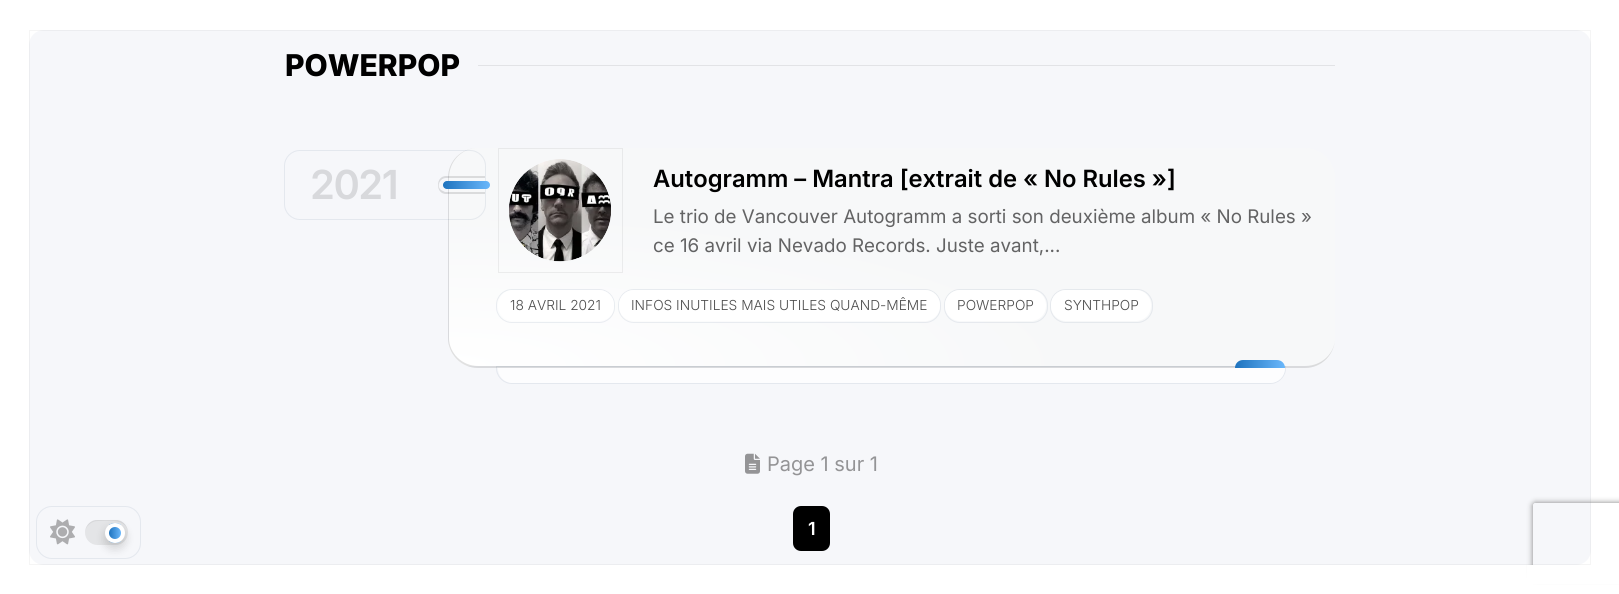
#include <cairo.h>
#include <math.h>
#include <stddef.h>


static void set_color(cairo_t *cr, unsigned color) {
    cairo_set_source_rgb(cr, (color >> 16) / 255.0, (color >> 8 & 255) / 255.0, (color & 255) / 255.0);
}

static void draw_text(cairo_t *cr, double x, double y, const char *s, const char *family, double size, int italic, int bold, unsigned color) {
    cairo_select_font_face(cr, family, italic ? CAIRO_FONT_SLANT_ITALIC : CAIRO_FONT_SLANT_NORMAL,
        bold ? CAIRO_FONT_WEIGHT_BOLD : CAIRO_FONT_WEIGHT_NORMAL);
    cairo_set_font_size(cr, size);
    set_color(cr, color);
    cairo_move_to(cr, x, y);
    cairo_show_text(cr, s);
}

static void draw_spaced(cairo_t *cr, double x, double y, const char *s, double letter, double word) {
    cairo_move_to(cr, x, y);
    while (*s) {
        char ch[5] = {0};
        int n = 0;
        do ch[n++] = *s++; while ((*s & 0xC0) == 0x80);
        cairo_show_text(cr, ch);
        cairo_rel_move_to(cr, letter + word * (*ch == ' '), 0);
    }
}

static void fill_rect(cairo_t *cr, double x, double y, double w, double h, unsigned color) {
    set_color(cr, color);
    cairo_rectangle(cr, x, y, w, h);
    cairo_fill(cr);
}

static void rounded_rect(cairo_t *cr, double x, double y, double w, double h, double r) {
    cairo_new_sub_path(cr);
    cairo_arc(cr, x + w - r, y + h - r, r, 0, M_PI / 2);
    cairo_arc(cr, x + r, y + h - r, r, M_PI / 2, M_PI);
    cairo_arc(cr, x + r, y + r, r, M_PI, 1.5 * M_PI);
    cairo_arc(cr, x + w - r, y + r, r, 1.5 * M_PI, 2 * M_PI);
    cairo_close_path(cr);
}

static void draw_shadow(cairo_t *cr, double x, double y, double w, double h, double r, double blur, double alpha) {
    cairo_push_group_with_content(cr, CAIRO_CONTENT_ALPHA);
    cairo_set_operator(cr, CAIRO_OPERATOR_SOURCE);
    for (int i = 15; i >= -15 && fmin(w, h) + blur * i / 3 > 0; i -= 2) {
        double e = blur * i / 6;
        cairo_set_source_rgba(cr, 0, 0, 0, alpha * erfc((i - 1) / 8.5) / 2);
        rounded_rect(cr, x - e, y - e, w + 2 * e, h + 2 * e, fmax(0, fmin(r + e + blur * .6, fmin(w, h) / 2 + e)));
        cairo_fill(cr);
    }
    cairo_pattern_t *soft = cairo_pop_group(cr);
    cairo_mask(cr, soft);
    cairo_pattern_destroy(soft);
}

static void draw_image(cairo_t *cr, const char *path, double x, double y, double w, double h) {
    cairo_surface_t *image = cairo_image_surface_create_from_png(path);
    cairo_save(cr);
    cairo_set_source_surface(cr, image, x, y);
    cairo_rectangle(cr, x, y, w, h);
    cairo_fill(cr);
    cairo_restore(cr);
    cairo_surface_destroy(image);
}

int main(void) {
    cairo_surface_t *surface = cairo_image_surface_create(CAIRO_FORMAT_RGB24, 1619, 594);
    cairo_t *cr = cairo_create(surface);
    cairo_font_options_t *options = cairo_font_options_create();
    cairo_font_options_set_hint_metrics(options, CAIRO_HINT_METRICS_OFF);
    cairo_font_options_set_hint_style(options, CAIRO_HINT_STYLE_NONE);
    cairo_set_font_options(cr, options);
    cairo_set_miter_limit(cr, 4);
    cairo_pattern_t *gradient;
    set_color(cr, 0xFFFFFF);
    cairo_paint(cr);
    set_color(cr, 0xF6F7FA);
    rounded_rect(cr, 29, 30, 1562, 535, 15);
    cairo_fill(cr);
    cairo_rectangle(cr, 29.5, 30.5, 1561, 534);
    cairo_set_source_rgba(cr, 0, 0, 0, 0.04);
    cairo_set_line_width(cr, 1);
    cairo_stroke(cr);
    rounded_rect(cr, 36.5, 506.5, 104, 52, 15.5);
    cairo_set_source_rgba(cr, 0.071, 0.216, 0.412, 0.08);
    cairo_stroke(cr);
    draw_image(cr, "assets/img1.png", 50, 519, 25, 26);
    set_color(cr, 0xE4E5E7);
    rounded_rect(cr, 85, 520, 43, 25, 12.5);
    cairo_fill(cr);
    cairo_set_source_rgba(cr, 0, 0, 0, 0.06);
    cairo_new_path(cr);
    cairo_move_to(cr, 98, 521);
    cairo_curve_to(cr, 108, 521, 127, 518, 128, 533);
    cairo_curve_to(cr, 128, 527, 124, 521, 118, 520);
    cairo_line_to(cr, 95, 520);
    cairo_curve_to(cr, 89, 521, 85, 527, 85, 533);
    cairo_curve_to(cr, 85, 527, 91, 521, 98, 521);
    cairo_close_path(cr);
    cairo_fill(cr);
    set_color(cr, 0x000000);
    draw_shadow(cr, 105, 528, 20, 20, 10, 5, 0.16);
    cairo_save(cr);
    rounded_rect(cr, 105, 523, 20, 20, 10);
    cairo_clip(cr);
    gradient = cairo_pattern_create_linear(109, 533, 121, 533);
    cairo_pattern_add_color_stop_rgba(gradient, 0, 0.118, 0.451, 0.745, 1);
    cairo_pattern_add_color_stop_rgba(gradient, 1, 0.416, 0.718, 0.984, 1);
    cairo_set_source(cr, gradient);
    cairo_pattern_destroy(gradient);
    cairo_rectangle(cr, 109, 523, 12, 20);
    cairo_fill(cr);
    cairo_restore(cr);
    cairo_arc(cr, 115, 533, 8, 0, 2 * M_PI);
    set_color(cr, 0xFFFFFF);
    cairo_set_line_width(cr, 4);
    cairo_stroke(cr);
    draw_text(cr, 285, 76, "POWERPOP", "Inter ExtraBold", 30, 0, 0, 0x000000);
    fill_rect(cr, 478, 65, 857, 1, 0xE2E3E6);
    cairo_save(cr);
    rounded_rect(cr, 448, 148, 887, 220, 30);
    cairo_clip(cr);
    gradient = cairo_pattern_create_radial(0, 0, 0, 0, 0, 1);
    cairo_pattern_set_matrix(gradient, &(cairo_matrix_t){1.0 / 1253, 0, 0, 1.0 / 309, -1.0 * 449 / 1253, -1.0 * 366 / 309});
    cairo_pattern_add_color_stop_rgba(gradient, 0, 1, 1, 1, 1);
    cairo_pattern_add_color_stop_rgba(gradient, 0.5, 0.969, 0.973, 0.976, 1);
    cairo_pattern_add_color_stop_rgba(gradient, 1, 0.969, 0.973, 0.976, 1);
    cairo_set_source(cr, gradient);
    cairo_pattern_destroy(gradient);
    cairo_new_path(cr);
    cairo_move_to(cr, 449, 148);
    cairo_line_to(cr, 1305, 148);
    cairo_curve_to(cr, 1321.5, 148, 1335, 161.5, 1335, 178);
    cairo_line_to(cr, 1335, 366);
    cairo_line_to(cr, 449, 366);
    cairo_close_path(cr);
    cairo_fill(cr);
    cairo_restore(cr);
    cairo_new_path(cr);
    cairo_move_to(cr, 496.5, 366.5);
    cairo_line_to(cr, 1285.5, 366.5);
    cairo_line_to(cr, 1285.5, 368);
    cairo_curve_to(cr, 1285.5, 376.5, 1278.5, 383.5, 1270, 383.5);
    cairo_line_to(cr, 512, 383.5);
    cairo_curve_to(cr, 503.5, 383.5, 496.5, 376.5, 496.5, 368);
    cairo_close_path(cr);
    cairo_set_source_rgba(cr, 0.071, 0.216, 0.412, 0.08);
    cairo_set_line_width(cr, 1);
    cairo_stroke(cr);
    cairo_set_source_rgba(cr, 0, 0, 0, 0.12);
    cairo_set_fill_rule(cr, CAIRO_FILL_RULE_EVEN_ODD);
    cairo_new_path(cr);
    cairo_move_to(cr, 478, 148);
    cairo_line_to(cr, 1305, 148);
    cairo_curve_to(cr, 1322, 148, 1335, 161, 1335, 178);
    cairo_line_to(cr, 1335, 338);
    cairo_curve_to(cr, 1335, 354, 1322, 368, 1305, 368);
    cairo_line_to(cr, 478, 368);
    cairo_curve_to(cr, 461, 368, 448, 354, 448, 338);
    cairo_line_to(cr, 448, 178);
    cairo_curve_to(cr, 448, 161, 461, 148, 478, 148);
    cairo_close_path(cr);
    cairo_move_to(cr, 478, 148);
    cairo_line_to(cr, 1305, 148);
    cairo_curve_to(cr, 1322, 148, 1335, 161, 1335, 178);
    cairo_line_to(cr, 1335, 338);
    cairo_curve_to(cr, 1335, 353, 1322, 366, 1305, 366);
    cairo_line_to(cr, 478, 366);
    cairo_curve_to(cr, 462, 366, 449, 353, 449, 338);
    cairo_line_to(cr, 449, 178);
    cairo_curve_to(cr, 449, 161, 462, 148, 478, 148);
    cairo_close_path(cr);
    cairo_fill(cr);
    rounded_rect(cr, 284.5, 150.5, 201, 69, 15.5);
    cairo_set_source_rgba(cr, 0.071, 0.216, 0.412, 0.08);
    cairo_stroke(cr);
    cairo_select_font_face(cr, "Inter SemiBold", CAIRO_FONT_SLANT_NORMAL, CAIRO_FONT_WEIGHT_NORMAL);
    cairo_set_font_size(cr, 40);
    set_color(cr, 0xD8D9DC);
    draw_spaced(cr, 310, 199, "2021", -1.5, 0);
    cairo_set_source_rgba(cr, 0, 0, 0, 0.12);
    cairo_new_path(cr);
    cairo_move_to(cr, 446, 176);
    cairo_line_to(cr, 485, 176);
    cairo_line_to(cr, 485, 194);
    cairo_line_to(cr, 446, 194);
    cairo_curve_to(cr, 441, 194, 438, 190, 438, 185);
    cairo_curve_to(cr, 438, 180, 441, 176, 446, 176);
    cairo_close_path(cr);
    cairo_move_to(cr, 446, 178);
    cairo_line_to(cr, 485, 178);
    cairo_line_to(cr, 485, 192);
    cairo_line_to(cr, 445, 192);
    cairo_line_to(cr, 441, 190);
    cairo_curve_to(cr, 436, 186, 440, 178, 446, 178);
    cairo_close_path(cr);
    cairo_fill(cr);
    gradient = cairo_pattern_create_linear(443, 185, 490, 185);
    cairo_pattern_add_color_stop_rgba(gradient, 0, 0.118, 0.451, 0.745, 1);
    cairo_pattern_add_color_stop_rgba(gradient, 1, 0.416, 0.718, 0.984, 1);
    cairo_set_source(cr, gradient);
    cairo_pattern_destroy(gradient);
    rounded_rect(cr, 443, 181, 47, 8, 4);
    cairo_fill(cr);
    cairo_rectangle(cr, 498.5, 148.5, 124, 124);
    cairo_set_source_rgba(cr, 0, 0, 0, 0.06);
    cairo_stroke(cr);
    draw_image(cr, "assets/img2.png", 509, 159, 102, 103);
    draw_text(cr, 653, 187, "Autogramm – Mantra [extrait de « No Rules »]", "Inter SemiBold", 23.75, 0, 0, 0x000000);
    draw_text(cr, 653, 223, "Le trio de Vancouver Autogramm a sorti son deuxième album « No Rules »", "Inter", 18.75, 0, 0, 0x636364);
    draw_text(cr, 653, 252, "ce 16 avril via Nevado Records. Juste avant,...", "Inter", 18.75, 0, 0, 0x636364);
    rounded_rect(cr, 496.5, 289.5, 118, 33, 15.5);
    cairo_set_source_rgba(cr, 0.071, 0.216, 0.412, 0.08);
    cairo_stroke(cr);
    set_color(cr, 0xFFFFFF);
    rounded_rect(cr, 498, 290, 116, 31, 15);
    cairo_fill(cr);
    draw_text(cr, 510, 310, "18 AVRIL 2021", "Inter Light", 13.75, 0, 0, 0x4D4D4D);
    rounded_rect(cr, 618.5, 289.5, 322, 33, 15.5);
    cairo_set_source_rgba(cr, 0.071, 0.216, 0.412, 0.08);
    cairo_stroke(cr);
    set_color(cr, 0xFFFFFF);
    rounded_rect(cr, 619, 290, 321, 31, 15);
    cairo_fill(cr);
    draw_text(cr, 631, 310, "INFOS INUTILES MAIS UTILES QUAND-MÊME", "Inter Light", 13.75, 0, 0, 0x4D4D4D);
    rounded_rect(cr, 944.5, 289.5, 103, 33, 15.5);
    cairo_set_source_rgba(cr, 0.071, 0.216, 0.412, 0.08);
    cairo_stroke(cr);
    set_color(cr, 0xFFFFFF);
    rounded_rect(cr, 945, 290, 101, 31, 15);
    cairo_fill(cr);
    draw_text(cr, 957, 310, "POWERPOP", "Inter Light", 13.75, 0, 0, 0x4D4D4D);
    rounded_rect(cr, 1050.5, 289.5, 102, 33, 15.5);
    cairo_set_source_rgba(cr, 0.071, 0.216, 0.412, 0.08);
    cairo_stroke(cr);
    set_color(cr, 0xFFFFFF);
    rounded_rect(cr, 1051, 290, 100, 31, 15);
    cairo_fill(cr);
    draw_text(cr, 1064, 310, "SYNTHPOP", "Inter Light", 13.75, 0, 0, 0x4D4D4D);
    gradient = cairo_pattern_create_linear(1235, 364, 1285, 364);
    cairo_pattern_add_color_stop_rgba(gradient, 0, 0.118, 0.451, 0.745, 1);
    cairo_pattern_add_color_stop_rgba(gradient, 1, 0.416, 0.718, 0.984, 1);
    cairo_set_source(cr, gradient);
    cairo_pattern_destroy(gradient);
    cairo_new_path(cr);
    cairo_move_to(cr, 1243, 360);
    cairo_line_to(cr, 1277, 360);
    cairo_curve_to(cr, 1281.5, 360, 1285, 363.5, 1285, 368);
    cairo_line_to(cr, 1235, 368);
    cairo_curve_to(cr, 1235, 363.5, 1238.5, 360, 1243, 360);
    cairo_close_path(cr);
    cairo_fill(cr);
    cairo_set_source_rgba(cr, 1, 1, 1, 0.8);
    cairo_new_path(cr);
    cairo_move_to(cr, 498, 368);
    cairo_line_to(cr, 1285, 368);
    cairo_curve_to(cr, 1285, 376.5, 1278.5, 383, 1270, 383);
    cairo_line_to(cr, 513, 383);
    cairo_curve_to(cr, 504.5, 383, 498, 376.5, 498, 368);
    cairo_close_path(cr);
    cairo_fill(cr);
    draw_image(cr, "assets/img3.png", 745, 453, 15, 21);
    draw_text(cr, 767, 471, "Page 1 sur 1", "Inter", 20, 0, 0, 0x949496);
    set_color(cr, 0x000000);
    rounded_rect(cr, 793, 506, 37, 45, 8);
    cairo_fill(cr);
    draw_text(cr, 808, 535, "1", "Inter SemiBold", 18, 0, 0, 0xFFFFFF);
    cairo_save(cr);
    cairo_new_path(cr);
    cairo_move_to(cr, 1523, 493);
    cairo_line_to(cr, 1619, 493);
    cairo_line_to(cr, 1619, 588);
    cairo_line_to(cr, 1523, 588);
    cairo_close_path(cr);
    cairo_move_to(cr, 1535.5, 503);
    cairo_line_to(cr, 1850.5, 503);
    cairo_curve_to(cr, 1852, 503, 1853, 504, 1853, 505.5);
    cairo_line_to(cr, 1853, 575.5);
    cairo_curve_to(cr, 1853, 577, 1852, 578, 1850.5, 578);
    cairo_line_to(cr, 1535.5, 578);
    cairo_curve_to(cr, 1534, 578, 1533, 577, 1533, 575.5);
    cairo_line_to(cr, 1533, 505.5);
    cairo_curve_to(cr, 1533, 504, 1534, 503, 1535.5, 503);
    cairo_close_path(cr);
    cairo_clip(cr);
    set_color(cr, 0x808080);
    draw_shadow(cr, 1533, 503, 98, 75, 2.5, 3, 1);
    cairo_restore(cr);
    fill_rect(cr, 1527, 565, 92, 19, 0xFFFFFF);
    cairo_surface_write_to_png(surface, "output.png");
    cairo_font_options_destroy(options);
    cairo_destroy(cr);
    cairo_surface_destroy(surface);
    return 0;
}
